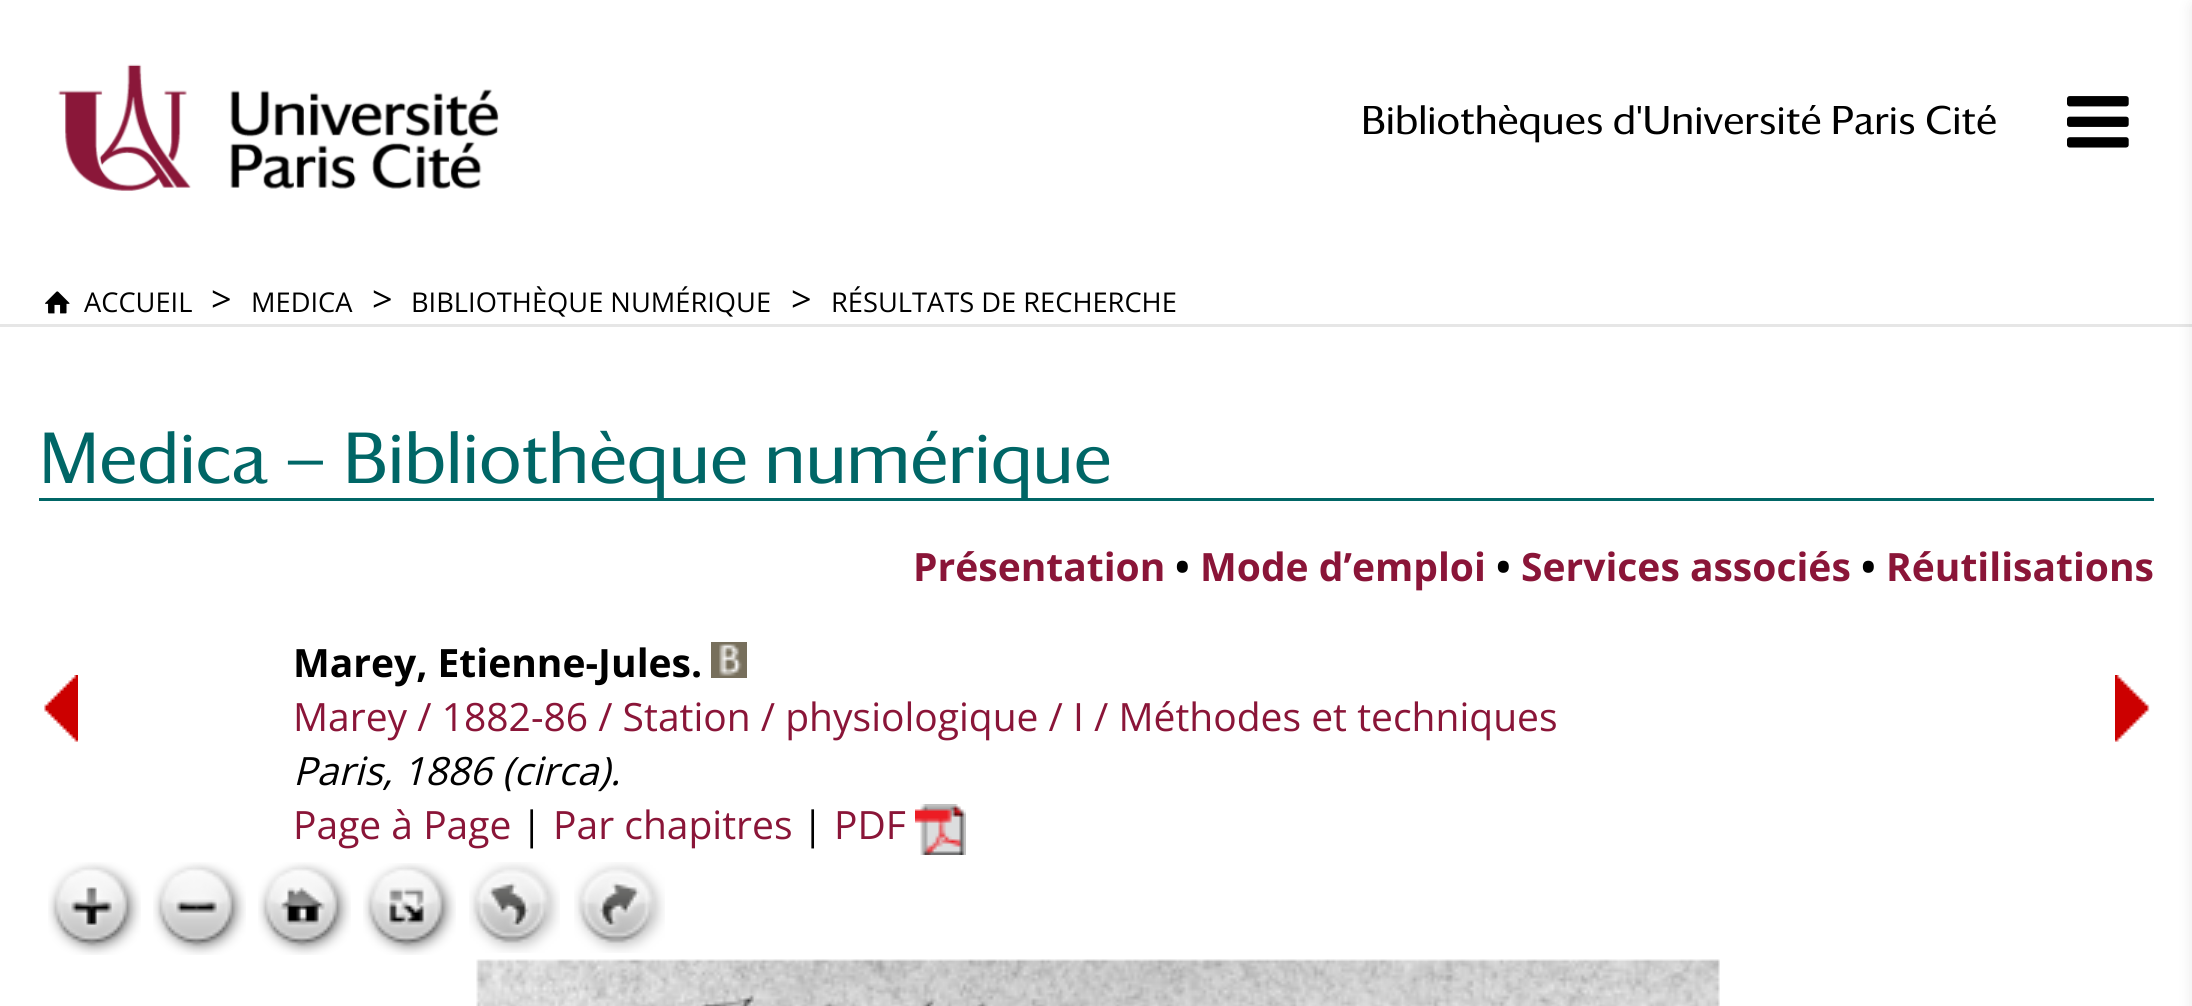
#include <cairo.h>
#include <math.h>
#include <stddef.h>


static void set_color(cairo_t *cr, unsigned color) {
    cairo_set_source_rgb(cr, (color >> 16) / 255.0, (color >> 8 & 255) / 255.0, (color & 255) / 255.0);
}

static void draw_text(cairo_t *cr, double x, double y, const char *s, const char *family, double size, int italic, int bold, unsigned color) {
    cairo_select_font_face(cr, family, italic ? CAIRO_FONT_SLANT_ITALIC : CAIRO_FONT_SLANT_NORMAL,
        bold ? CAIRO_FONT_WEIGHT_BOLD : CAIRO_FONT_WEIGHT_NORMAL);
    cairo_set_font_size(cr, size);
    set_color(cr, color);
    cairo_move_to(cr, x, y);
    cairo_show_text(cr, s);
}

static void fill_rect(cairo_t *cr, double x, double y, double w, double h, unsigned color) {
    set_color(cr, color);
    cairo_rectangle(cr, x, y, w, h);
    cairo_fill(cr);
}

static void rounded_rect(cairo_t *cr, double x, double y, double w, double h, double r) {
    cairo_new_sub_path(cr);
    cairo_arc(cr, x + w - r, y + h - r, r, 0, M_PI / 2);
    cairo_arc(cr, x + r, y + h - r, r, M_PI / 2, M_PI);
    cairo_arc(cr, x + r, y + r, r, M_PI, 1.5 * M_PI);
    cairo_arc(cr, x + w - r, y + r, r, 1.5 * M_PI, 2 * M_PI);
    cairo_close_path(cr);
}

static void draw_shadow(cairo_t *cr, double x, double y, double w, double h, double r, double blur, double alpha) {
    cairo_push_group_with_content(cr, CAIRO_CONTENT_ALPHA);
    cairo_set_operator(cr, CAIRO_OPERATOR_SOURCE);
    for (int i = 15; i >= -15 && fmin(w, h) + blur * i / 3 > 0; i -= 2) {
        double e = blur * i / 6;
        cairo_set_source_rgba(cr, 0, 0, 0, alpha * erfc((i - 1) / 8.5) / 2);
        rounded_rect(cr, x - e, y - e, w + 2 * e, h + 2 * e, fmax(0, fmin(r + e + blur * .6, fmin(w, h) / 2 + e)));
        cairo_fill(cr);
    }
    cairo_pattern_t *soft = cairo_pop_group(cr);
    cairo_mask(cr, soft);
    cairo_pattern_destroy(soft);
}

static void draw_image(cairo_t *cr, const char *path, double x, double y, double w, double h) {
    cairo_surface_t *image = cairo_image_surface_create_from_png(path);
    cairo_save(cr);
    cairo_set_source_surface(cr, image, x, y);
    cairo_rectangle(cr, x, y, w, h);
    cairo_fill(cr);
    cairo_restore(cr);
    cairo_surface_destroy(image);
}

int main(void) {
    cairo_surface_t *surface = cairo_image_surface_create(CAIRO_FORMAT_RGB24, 2192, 1006);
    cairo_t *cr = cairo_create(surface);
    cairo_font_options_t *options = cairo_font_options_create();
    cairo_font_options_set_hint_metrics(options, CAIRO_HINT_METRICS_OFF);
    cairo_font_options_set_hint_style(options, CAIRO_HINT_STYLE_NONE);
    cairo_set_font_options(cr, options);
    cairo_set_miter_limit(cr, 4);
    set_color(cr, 0xFFFFFF);
    cairo_paint(cr);
    fill_rect(cr, 0, 324, 2192, 3, 0xE6E6E6);
    draw_image(cr, "assets/img1.png", 58, 64, 441, 127);
    draw_text(cr, 1361, 134, "Bibliothèques d'Université Paris Cité", "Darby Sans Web", 39, 0, 0, 0x000000);
    draw_image(cr, "assets/img2.png", 2067, 96, 62, 52);
    set_color(cr, 0x000000);
    draw_shadow(cr, 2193, 6, 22, 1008, 0, 7.5, 0.1);
    draw_image(cr, "assets/img3.png", 45, 291, 25, 23);
    draw_text(cr, 84, 312, "ACCUEIL", "Open Sans", 27.25, 0, 0, 0x000000);
    draw_text(cr, 211, 312, ">", "Open Sans", 36, 0, 0, 0x000000);
    draw_text(cr, 251, 312, "MEDICA", "Open Sans", 27.25, 0, 0, 0x000000);
    draw_text(cr, 372, 312, ">", "Open Sans", 36, 0, 0, 0x000000);
    draw_text(cr, 411, 312, "BIBLIOTHÈQUE NUMÉRIQUE", "Open Sans", 27.25, 0, 0, 0x000000);
    draw_text(cr, 791, 312, ">", "Open Sans", 36, 0, 0, 0x000000);
    draw_text(cr, 831, 312, "RÉSULTATS DE RECHERCHE", "Open Sans", 27.25, 0, 0, 0x000000);
    fill_rect(cr, 39, 498, 2115, 3, 0x006666);
    draw_text(cr, 39, 483, "Medica — Bibliothèque numérique", "Darby Sans Web", 70.25, 0, 0, 0x006666);
    draw_text(cr, 913, 581, "Présentation", "Open Sans", 39, 0, 1, 0x8A1538);
    draw_text(cr, 1175, 581, "•", "Open Sans", 39, 0, 1, 0x000000);
    draw_text(cr, 1200, 581, "Mode d’emploi", "Open Sans", 39, 0, 1, 0x8A1538);
    draw_text(cr, 1496, 581, "•", "Open Sans", 39, 0, 1, 0x000000);
    draw_text(cr, 1521, 581, "Services associés", "Open Sans", 39, 0, 1, 0x8A1538);
    draw_text(cr, 1861, 581, "•", "Open Sans", 39, 0, 1, 0x000000);
    draw_text(cr, 1886, 581, "Réutilisations", "Open Sans", 39, 0, 1, 0x8A1538);
    draw_image(cr, "assets/img4.png", 44, 675, 34, 67);
    draw_text(cr, 293, 677, "Marey, Etienne-Jules.", "Open Sans", 39, 0, 1, 0x000000);
    draw_image(cr, "assets/img5.png", 711, 642, 36, 36);
    draw_text(cr, 293, 731, "Marey / 1882-86 / Station / physiologique / I / Méthodes et techniques", "Open Sans", 39, 0, 0, 0x8A1538);
    draw_text(cr, 293, 785, "Paris, 1886 (circa).", "Open Sans", 39, 1, 0, 0x000000);
    draw_text(cr, 293, 839, "Page à Page", "Open Sans", 39, 0, 0, 0x8A1538);
    draw_text(cr, 521, 839, "|", "Open Sans", 39, 0, 0, 0x000000);
    draw_text(cr, 553, 839, "Par chapitres", "Open Sans", 39, 0, 0, 0x8A1538);
    draw_text(cr, 802, 839, "|", "Open Sans", 39, 0, 0, 0x000000);
    draw_text(cr, 834, 839, "PDF", "Open Sans", 39, 0, 0, 0x8A1538);
    draw_image(cr, "assets/img6.png", 915, 804, 51, 51);
    draw_image(cr, "assets/img7.png", 2115, 675, 35, 67);
    draw_image(cr, "assets/img8.png", 48, 862, 93, 93);
    draw_image(cr, "assets/img9.png", 153, 862, 93, 93);
    draw_image(cr, "assets/img10.png", 258, 862, 93, 93);
    draw_image(cr, "assets/img11.png", 363, 863, 93, 92);
    draw_image(cr, "assets/img12.png", 469, 862, 91, 91);
    draw_image(cr, "assets/img13.png", 574, 862, 91, 91);
    draw_image(cr, "assets/img14.png", 476, 959, 1244, 47);
    cairo_surface_write_to_png(surface, "output.png");
    cairo_font_options_destroy(options);
    cairo_destroy(cr);
    cairo_surface_destroy(surface);
    return 0;
}
